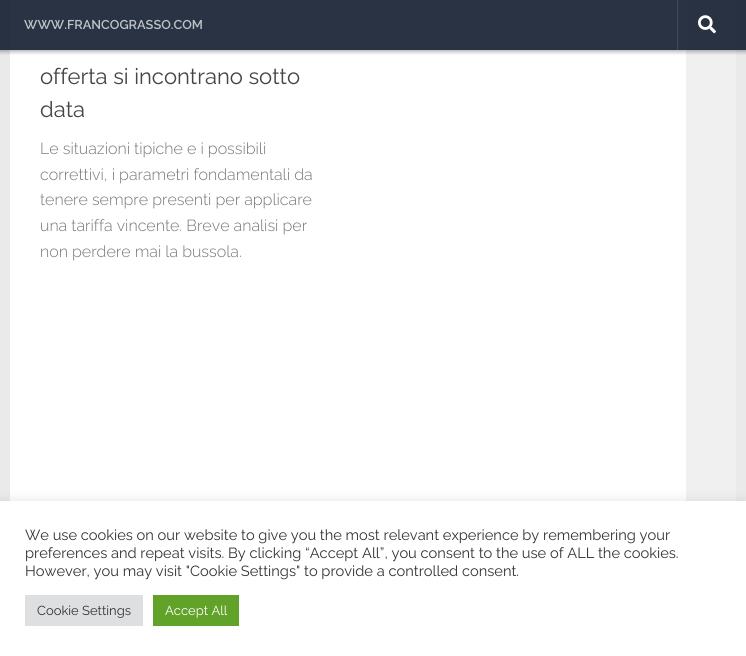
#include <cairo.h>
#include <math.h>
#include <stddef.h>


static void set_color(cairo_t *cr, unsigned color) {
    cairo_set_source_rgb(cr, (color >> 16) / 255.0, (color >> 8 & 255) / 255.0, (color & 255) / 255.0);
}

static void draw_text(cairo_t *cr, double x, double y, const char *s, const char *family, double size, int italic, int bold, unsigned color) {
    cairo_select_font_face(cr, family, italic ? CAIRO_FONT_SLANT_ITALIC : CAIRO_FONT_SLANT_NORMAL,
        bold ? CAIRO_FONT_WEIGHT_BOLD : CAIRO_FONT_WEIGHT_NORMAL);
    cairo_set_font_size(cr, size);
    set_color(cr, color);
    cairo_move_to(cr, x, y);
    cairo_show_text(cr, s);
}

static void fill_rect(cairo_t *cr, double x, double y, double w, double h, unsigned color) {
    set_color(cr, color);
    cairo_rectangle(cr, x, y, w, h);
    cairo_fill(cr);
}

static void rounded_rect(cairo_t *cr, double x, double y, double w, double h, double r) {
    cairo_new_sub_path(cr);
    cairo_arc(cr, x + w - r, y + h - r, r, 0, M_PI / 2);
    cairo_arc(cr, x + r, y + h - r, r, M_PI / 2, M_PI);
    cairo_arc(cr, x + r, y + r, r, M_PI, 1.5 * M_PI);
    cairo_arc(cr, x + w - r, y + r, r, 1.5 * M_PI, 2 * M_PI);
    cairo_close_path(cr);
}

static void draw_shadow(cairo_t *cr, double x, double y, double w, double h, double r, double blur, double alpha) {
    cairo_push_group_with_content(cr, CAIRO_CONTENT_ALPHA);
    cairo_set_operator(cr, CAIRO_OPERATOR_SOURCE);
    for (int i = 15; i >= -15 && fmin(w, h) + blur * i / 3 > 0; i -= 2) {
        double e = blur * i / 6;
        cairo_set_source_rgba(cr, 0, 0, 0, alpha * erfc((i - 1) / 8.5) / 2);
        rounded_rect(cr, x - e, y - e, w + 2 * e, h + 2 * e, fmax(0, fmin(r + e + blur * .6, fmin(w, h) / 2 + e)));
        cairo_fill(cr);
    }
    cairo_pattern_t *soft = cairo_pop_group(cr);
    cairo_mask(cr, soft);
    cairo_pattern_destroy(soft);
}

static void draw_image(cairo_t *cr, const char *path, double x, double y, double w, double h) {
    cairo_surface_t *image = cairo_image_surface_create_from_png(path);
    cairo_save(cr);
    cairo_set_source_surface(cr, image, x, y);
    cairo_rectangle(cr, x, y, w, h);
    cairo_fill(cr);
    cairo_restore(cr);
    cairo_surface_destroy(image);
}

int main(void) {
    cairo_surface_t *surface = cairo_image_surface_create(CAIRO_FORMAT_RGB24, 746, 656);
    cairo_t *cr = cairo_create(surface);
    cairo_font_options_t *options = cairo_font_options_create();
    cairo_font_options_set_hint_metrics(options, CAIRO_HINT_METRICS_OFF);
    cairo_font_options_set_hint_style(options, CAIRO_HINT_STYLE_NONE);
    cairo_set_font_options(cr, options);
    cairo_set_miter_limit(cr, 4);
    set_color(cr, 0xEAEAEA);
    cairo_paint(cr);
    fill_rect(cr, 10, 0, 676, 501, 0xFFFFFF);
    fill_rect(cr, 686, 0, 50, 501, 0xF0F0F0);
    cairo_save(cr);
    cairo_rectangle(cr, 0, 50, 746, 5);
    cairo_clip(cr);
    set_color(cr, 0x000000);
    draw_shadow(cr, -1, 0, 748, 52, 0, 2, 0.3);
    cairo_restore(cr);
    cairo_set_source_rgba(cr, 0.071, 0.114, 0.188, 0.9);
    cairo_rectangle(cr, 0, 0, 746, 50);
    cairo_fill(cr);
    draw_text(cr, 24, 29, "WWW.FRANCOGRASSO.COM", "Raleway SemiBold", 12.75, 0, 0, 0xBFC2C7);
    fill_rect(cr, 677, 0, 1, 50, 0x3F4857);
    draw_image(cr, "assets/img1.png", 698, 15, 18, 19);
    draw_text(cr, 40, 84, "offerta si incontrano sotto", "Raleway", 22, 0, 0, 0x444444);
    draw_text(cr, 40, 117, "data", "Raleway", 22, 0, 0, 0x444444);
    draw_text(cr, 40, 154, "Le situazioni tipiche e i possibili", "Raleway Light", 16, 0, 0, 0x767676);
    draw_text(cr, 40, 180, "correttivi, i parametri fondamentali da", "Raleway Light", 16, 0, 0, 0x767676);
    draw_text(cr, 40, 205, "tenere sempre presenti per applicare", "Raleway Light", 16, 0, 0, 0x767676);
    draw_text(cr, 40, 231, "una tariffa vincente. Breve analisi per", "Raleway Light", 16, 0, 0, 0x767676);
    draw_text(cr, 40, 257, "non perdere mai la bussola.", "Raleway Light", 16, 0, 0, 0x767676);
    set_color(cr, 0xACABAB);
    draw_shadow(cr, 0, 500, 746, 155, 0, 5, 0.3);
    fill_rect(cr, 0, 501, 746, 155, 0xFFFFFF);
    draw_text(cr, 25, 540, "We use cookies on our website to give you the most relevant experience by remembering your", "Raleway", 14.65, 0, 0, 0x333333);
    draw_text(cr, 25, 558, "preferences and repeat visits. By clicking “Accept All”, you consent to the use of ALL the cookies.", "Raleway", 14.65, 0, 0, 0x333333);
    draw_text(cr, 25, 576, "However, you may visit \"Cookie Settings\" to provide a controlled consent.", "Raleway", 14.65, 0, 0, 0x333333);
    fill_rect(cr, 25, 595, 118, 31, 0xDEDFE0);
    draw_text(cr, 37, 615, "Cookie Settings", "Raleway", 13, 0, 0, 0x333333);
    fill_rect(cr, 153, 595, 86, 31, 0x61A229);
    draw_text(cr, 165, 615, "Accept All", "Raleway", 13, 0, 0, 0xFFFFFF);
    cairo_surface_write_to_png(surface, "output.png");
    cairo_font_options_destroy(options);
    cairo_destroy(cr);
    cairo_surface_destroy(surface);
    return 0;
}
